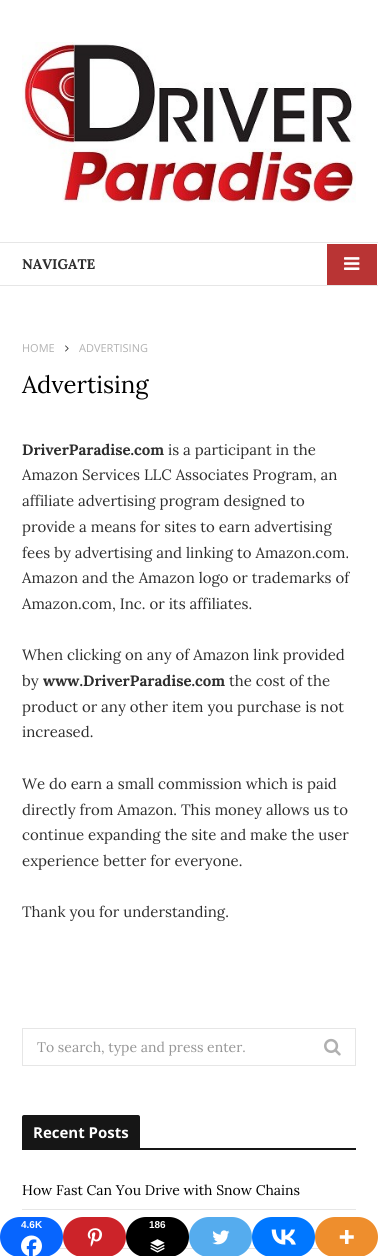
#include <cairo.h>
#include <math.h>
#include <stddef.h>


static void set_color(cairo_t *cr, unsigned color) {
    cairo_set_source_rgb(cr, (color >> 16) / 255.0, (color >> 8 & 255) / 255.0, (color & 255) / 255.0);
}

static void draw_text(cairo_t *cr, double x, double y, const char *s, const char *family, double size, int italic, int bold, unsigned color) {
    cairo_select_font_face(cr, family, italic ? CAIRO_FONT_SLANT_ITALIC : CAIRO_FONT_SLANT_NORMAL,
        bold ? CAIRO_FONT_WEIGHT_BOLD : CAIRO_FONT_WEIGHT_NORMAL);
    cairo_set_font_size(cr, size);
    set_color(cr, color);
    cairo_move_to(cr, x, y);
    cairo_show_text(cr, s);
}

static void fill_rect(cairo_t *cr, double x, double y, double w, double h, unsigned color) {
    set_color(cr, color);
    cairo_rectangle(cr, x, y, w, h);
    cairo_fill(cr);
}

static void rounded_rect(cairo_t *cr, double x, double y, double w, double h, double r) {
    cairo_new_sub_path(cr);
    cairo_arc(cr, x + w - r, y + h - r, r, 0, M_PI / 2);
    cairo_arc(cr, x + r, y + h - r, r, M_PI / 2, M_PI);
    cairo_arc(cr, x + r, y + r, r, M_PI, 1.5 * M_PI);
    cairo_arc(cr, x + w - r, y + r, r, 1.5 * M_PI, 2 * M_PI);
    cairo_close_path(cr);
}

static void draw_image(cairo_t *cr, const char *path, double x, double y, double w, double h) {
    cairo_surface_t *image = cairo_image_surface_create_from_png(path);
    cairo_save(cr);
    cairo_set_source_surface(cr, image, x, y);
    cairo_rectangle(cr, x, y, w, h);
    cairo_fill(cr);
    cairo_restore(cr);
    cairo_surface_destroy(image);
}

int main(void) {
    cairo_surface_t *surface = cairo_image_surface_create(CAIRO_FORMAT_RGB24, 378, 1256);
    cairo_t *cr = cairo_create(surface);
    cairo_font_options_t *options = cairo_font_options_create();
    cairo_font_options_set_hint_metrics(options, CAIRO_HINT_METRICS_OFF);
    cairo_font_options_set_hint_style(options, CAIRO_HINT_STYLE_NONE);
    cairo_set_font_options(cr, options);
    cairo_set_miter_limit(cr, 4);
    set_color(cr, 0xFFFFFF);
    cairo_paint(cr);
    draw_image(cr, "assets/img1.png", 22, 42, 334, 161);
    fill_rect(cr, 0, 242, 378, 1, 0xE6E6E6);
    fill_rect(cr, 0, 285, 378, 1, 0xE6E6E6);
    draw_text(cr, 22, 269, "NAVIGATE", "Lora", 14, 0, 1, 0x2E2E2E);
    fill_rect(cr, 327, 244, 50, 41, 0xB93434);
    draw_image(cr, "assets/img2.png", 344, 257, 16, 13);
    draw_text(cr, 22, 352, "HOME", "Open Sans", 11, 0, 0, 0xB1B1B1);
    draw_image(cr, "assets/img3.png", 65, 345, 4, 7);
    draw_text(cr, 79, 352, "ADVERTISING", "Open Sans", 11, 0, 0, 0xB1B1B1);
    draw_text(cr, 22, 393, "Advertising", "Lora", 24, 0, 0, 0x000000);
    draw_text(cr, 22, 455, "DriverParadise.com", "Lora", 15, 0, 1, 0x2E2E2E);
    draw_text(cr, 168, 455, "is a participant in the", "Lora", 15, 0, 0, 0x2E2E2E);
    draw_text(cr, 22, 480, "Amazon Services LLC Associates Program, an", "Lora", 15, 0, 0, 0x2E2E2E);
    draw_text(cr, 22, 506, "affiliate advertising program designed to", "Lora", 15, 0, 0, 0x2E2E2E);
    draw_text(cr, 22, 532, "provide a means for sites to earn advertising", "Lora", 15, 0, 0, 0x2E2E2E);
    draw_text(cr, 22, 558, "fees by advertising and linking to Amazon.com.", "Lora", 15, 0, 0, 0x2E2E2E);
    draw_text(cr, 22, 583, "Amazon and the Amazon logo or trademarks of", "Lora", 15, 0, 0, 0x2E2E2E);
    draw_text(cr, 22, 609, "Amazon.com, Inc. or its affiliates.", "Lora", 15, 0, 0, 0x2E2E2E);
    draw_text(cr, 22, 660, "When clicking on any of Amazon link provided", "Lora", 15, 0, 0, 0x2E2E2E);
    draw_text(cr, 22, 686, "by", "Lora", 15, 0, 0, 0x2E2E2E);
    draw_text(cr, 43, 686, "www.DriverParadise.com", "Lora", 15, 0, 1, 0x2E2E2E);
    draw_text(cr, 229, 686, "the cost of the", "Lora", 15, 0, 0, 0x2E2E2E);
    draw_text(cr, 22, 712, "product or any other item you purchase is not", "Lora", 15, 0, 0, 0x2E2E2E);
    draw_text(cr, 22, 737, "increased.", "Lora", 15, 0, 0, 0x2E2E2E);
    draw_text(cr, 22, 789, "We do earn a small commission which is paid", "Lora", 15, 0, 0, 0x2E2E2E);
    draw_text(cr, 22, 815, "directly from Amazon. This money allows us to", "Lora", 15, 0, 0, 0x2E2E2E);
    draw_text(cr, 22, 840, "continue expanding the site and make the user", "Lora", 15, 0, 0, 0x2E2E2E);
    draw_text(cr, 22, 866, "experience better for everyone.", "Lora", 15, 0, 0, 0x2E2E2E);
    draw_text(cr, 22, 917, "Thank you for understanding.", "Lora", 15, 0, 0, 0x2E2E2E);
    fill_rect(cr, 59, 1248, 260, 1, 0xE6E6E6);
    set_color(cr, 0x0765FE);
    rounded_rect(cr, 0, 1217, 63, 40, 20);
    cairo_fill(cr);
    draw_text(cr, 21, 1228, "4.6K", "Liberation Sans", 10, 0, 1, 0xFFFFFF);
    draw_image(cr, "assets/img4.png", 21, 1235, 21, 21);
    set_color(cr, 0xCC2329);
    rounded_rect(cr, 63, 1217, 63, 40, 20);
    cairo_fill(cr);
    draw_image(cr, "assets/img5.png", 87, 1228, 15, 19);
    set_color(cr, 0x000000);
    rounded_rect(cr, 126, 1217, 63, 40, 20);
    cairo_fill(cr);
    draw_text(cr, 149, 1228, "186", "Liberation Sans", 10, 0, 1, 0xFFFFFF);
    draw_image(cr, "assets/img6.png", 150, 1239, 15, 14);
    set_color(cr, 0x55ACEE);
    rounded_rect(cr, 189, 1217, 63, 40, 20);
    cairo_fill(cr);
    draw_image(cr, "assets/img7.png", 212, 1230, 18, 15);
    set_color(cr, 0x0077FF);
    rounded_rect(cr, 252, 1217, 63, 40, 20);
    cairo_fill(cr);
    draw_image(cr, "assets/img8.png", 271, 1229, 25, 16);
    set_color(cr, 0xEE8E2D);
    rounded_rect(cr, 315, 1217, 63, 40, 20);
    cairo_fill(cr);
    draw_image(cr, "assets/img9.png", 339, 1230, 15, 14);
    cairo_rectangle(cr, 22.5, 1028.5, 333, 37);
    set_color(cr, 0xE6E6E6);
    cairo_set_line_width(cr, 1);
    cairo_stroke(cr);
    draw_text(cr, 37, 1052, "To search, type and press enter.", "Lora", 14, 0, 0, 0x959595);
    draw_image(cr, "assets/img10.png", 324, 1038, 17, 18);
    fill_rect(cr, 22, 1148, 334, 2, 0x161616);
    rounded_rect(cr, 22, 1115, 118, 35, 2);
    cairo_fill(cr);
    draw_text(cr, 33, 1138, "Recent Posts", "Open Sans", 15, 0, 1, 0xFFFFFF);
    fill_rect(cr, 22, 1209, 334, 1, 0xE6E6E6);
    draw_text(cr, 22, 1195, "How Fast Can You Drive with Snow Chains", "Lora", 14, 0, 0, 0x000000);
    cairo_surface_write_to_png(surface, "output.png");
    cairo_font_options_destroy(options);
    cairo_destroy(cr);
    cairo_surface_destroy(surface);
    return 0;
}
